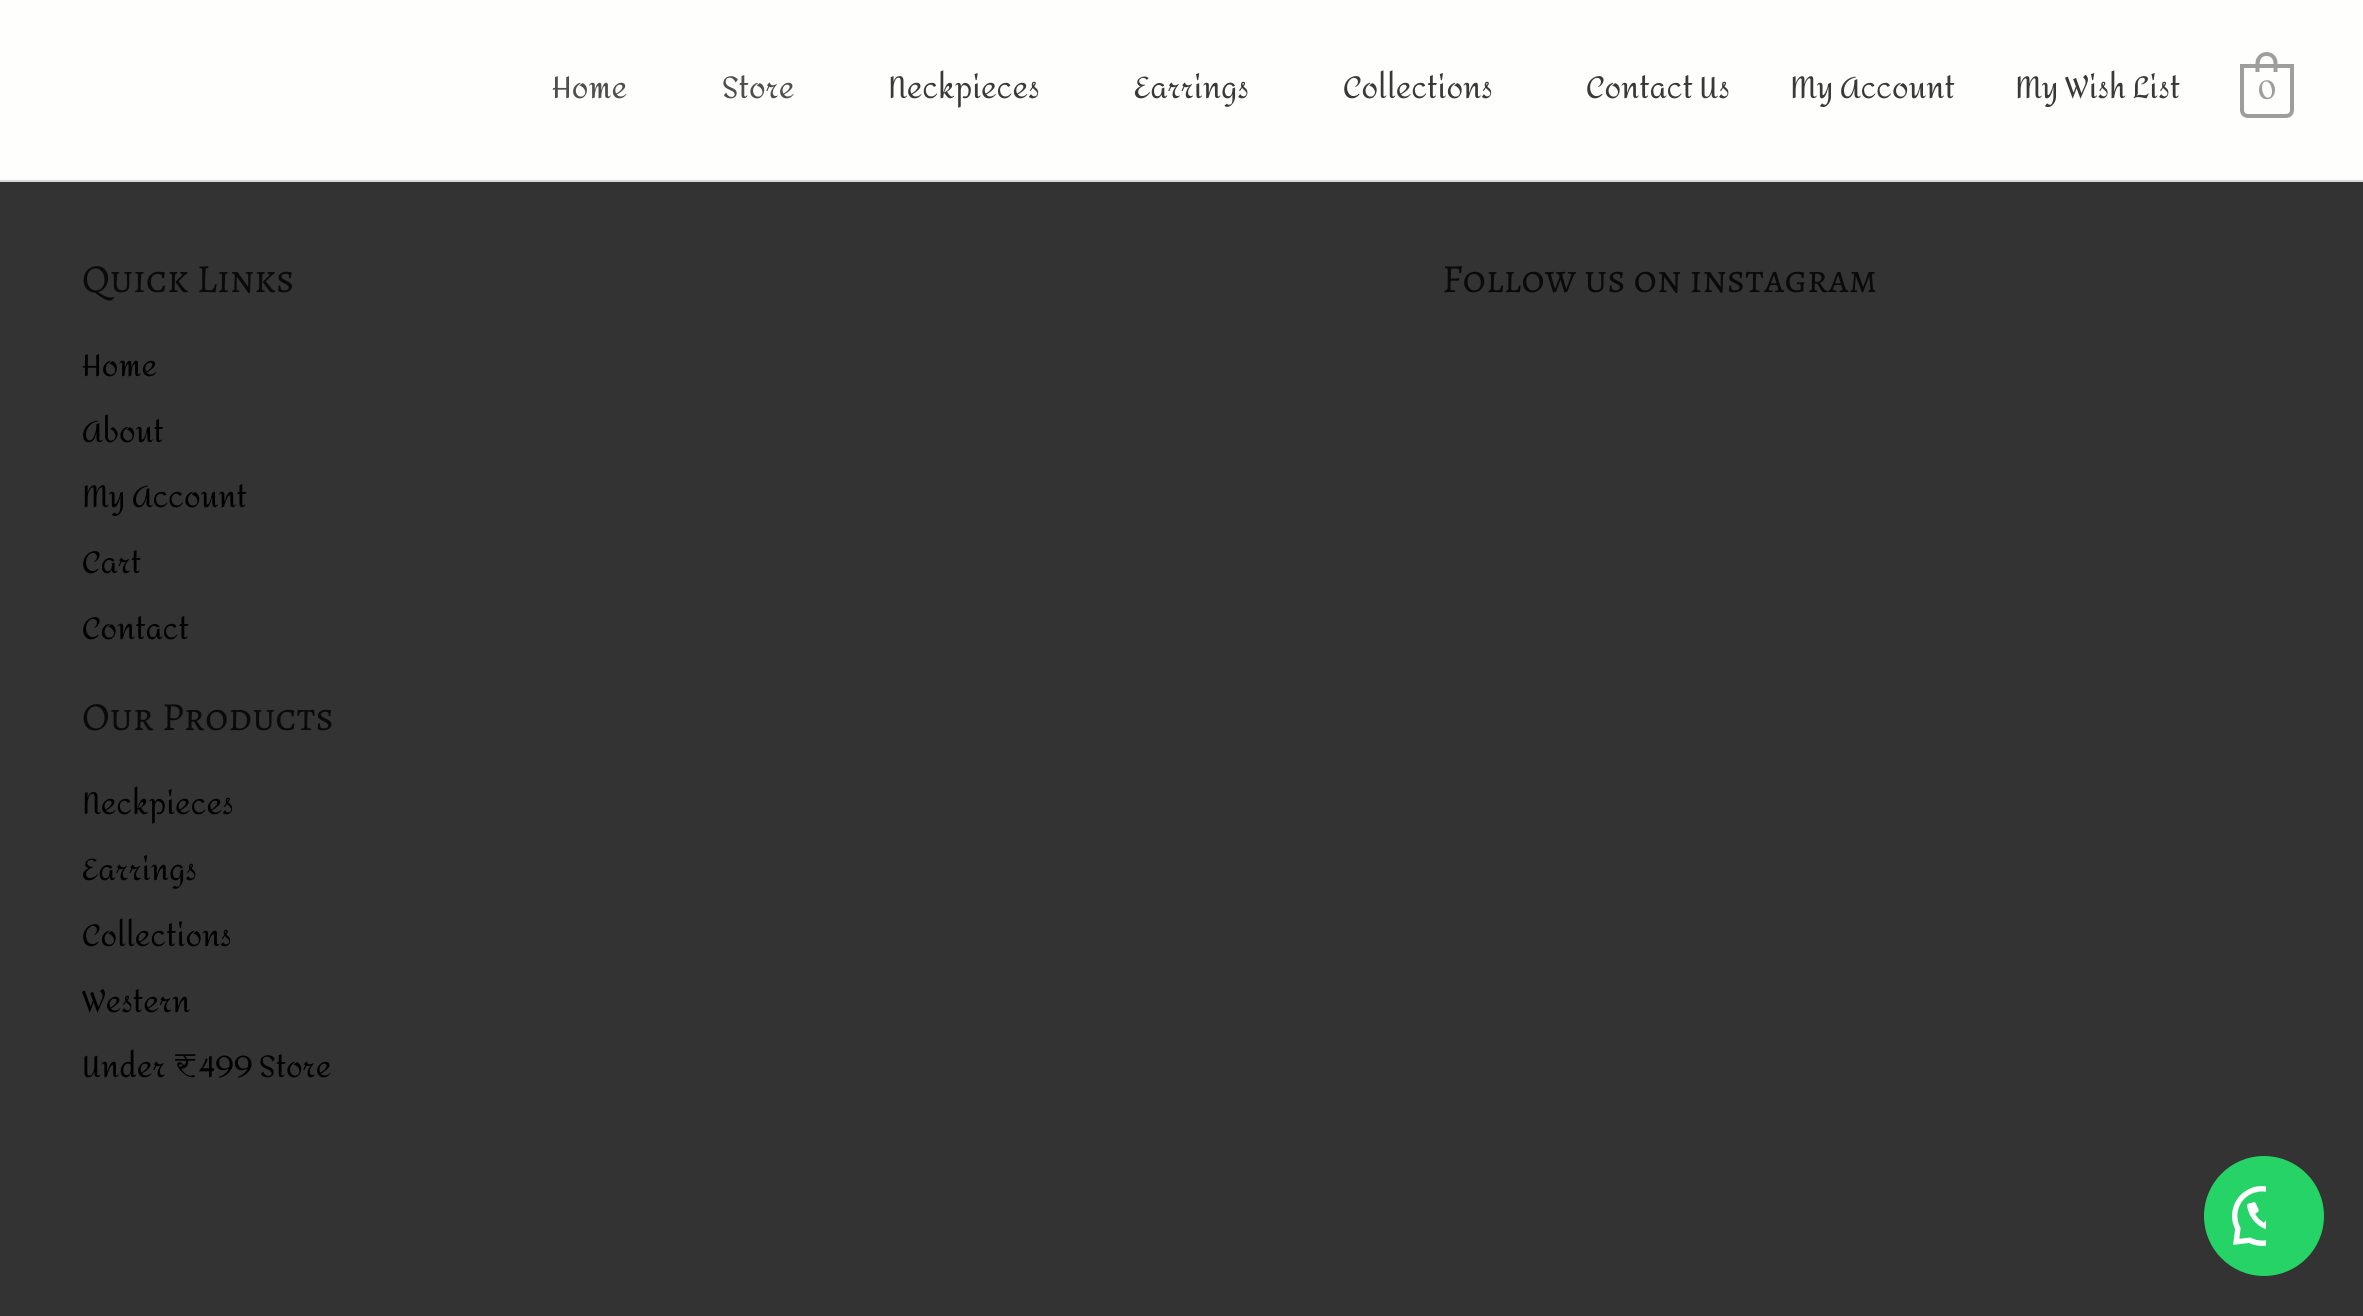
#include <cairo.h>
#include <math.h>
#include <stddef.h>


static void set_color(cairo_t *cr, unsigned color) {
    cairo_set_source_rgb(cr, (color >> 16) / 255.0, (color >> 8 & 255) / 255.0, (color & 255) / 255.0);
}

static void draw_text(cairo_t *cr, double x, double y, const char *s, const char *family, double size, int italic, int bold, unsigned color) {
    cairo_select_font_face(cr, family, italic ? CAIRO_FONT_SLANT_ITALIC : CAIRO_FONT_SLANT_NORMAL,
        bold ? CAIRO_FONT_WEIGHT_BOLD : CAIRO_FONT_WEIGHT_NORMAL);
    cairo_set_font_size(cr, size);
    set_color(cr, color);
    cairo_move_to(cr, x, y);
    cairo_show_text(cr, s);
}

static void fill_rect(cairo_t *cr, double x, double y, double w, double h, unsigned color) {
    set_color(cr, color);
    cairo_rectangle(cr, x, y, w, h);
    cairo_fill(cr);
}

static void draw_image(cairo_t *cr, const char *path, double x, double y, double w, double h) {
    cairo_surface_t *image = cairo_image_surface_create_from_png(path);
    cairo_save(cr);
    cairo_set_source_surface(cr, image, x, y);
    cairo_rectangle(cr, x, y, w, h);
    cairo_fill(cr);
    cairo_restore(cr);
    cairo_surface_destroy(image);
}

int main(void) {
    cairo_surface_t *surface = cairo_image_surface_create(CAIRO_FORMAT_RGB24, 2363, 1316);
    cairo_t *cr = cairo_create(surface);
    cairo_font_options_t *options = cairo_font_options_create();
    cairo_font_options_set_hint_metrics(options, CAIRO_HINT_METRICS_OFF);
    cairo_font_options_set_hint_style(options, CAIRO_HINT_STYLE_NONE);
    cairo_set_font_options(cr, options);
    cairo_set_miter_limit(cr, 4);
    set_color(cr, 0x333333);
    cairo_paint(cr);
    fill_rect(cr, 0, 0, 2363, 180, 0xFEFEFC);
    fill_rect(cr, 0, 180, 2363, 2, 0xD8D8D8);
    draw_text(cr, 552, 98, "Home", "Amita", 30, 0, 0, 0x4E4E4D);
    draw_text(cr, 722, 98, "Store", "Amita", 30, 0, 0, 0x4E4E4D);
    draw_text(cr, 888, 98, "Neckpieces", "Amita", 30, 0, 0, 0x393939);
    draw_text(cr, 1134, 98, "Earrings", "Amita", 30, 0, 0, 0x393939);
    draw_text(cr, 1343, 98, "Collections", "Amita", 30, 0, 0, 0x393939);
    draw_text(cr, 1586, 98, "Contact Us", "Amita", 30, 0, 0, 0x393939);
    draw_text(cr, 1790, 98, "My Account", "Amita", 30, 0, 0, 0x393939);
    draw_text(cr, 2015, 98, "My Wish List", "Amita", 30, 0, 0, 0x393939);
    cairo_new_path(cr);
    cairo_move_to(cr, 2242, 66);
    cairo_line_to(cr, 2292, 66);
    cairo_line_to(cr, 2292, 110);
    cairo_curve_to(cr, 2292, 113.5, 2289.5, 116, 2286, 116);
    cairo_line_to(cr, 2248, 116);
    cairo_curve_to(cr, 2244.5, 116, 2242, 113.5, 2242, 110);
    cairo_close_path(cr);
    set_color(cr, 0x9E9E9E);
    cairo_set_line_width(cr, 4);
    cairo_stroke(cr);
    cairo_set_fill_rule(cr, CAIRO_FILL_RULE_EVEN_ODD);
    cairo_new_path(cr);
    cairo_move_to(cr, 2266.5, 52);
    cairo_curve_to(cr, 2273, 52, 2277.5, 57, 2277.5, 63);
    cairo_line_to(cr, 2277.5, 72);
    cairo_line_to(cr, 2255.5, 72);
    cairo_line_to(cr, 2255.5, 63);
    cairo_curve_to(cr, 2255.5, 57, 2260.5, 52, 2266.5, 52);
    cairo_close_path(cr);
    cairo_move_to(cr, 2266.5, 56);
    cairo_curve_to(cr, 2275.5, 56, 2273.5, 66.5, 2273.5, 72);
    cairo_line_to(cr, 2259.5, 72);
    cairo_curve_to(cr, 2259.5, 66.5, 2258, 56, 2266.5, 56);
    cairo_close_path(cr);
    cairo_fill(cr);
    draw_text(cr, 2258, 99, "0", "Amita", 26, 0, 1, 0x9E9E9E);
    draw_text(cr, 82, 292, "Quick Links", "Alegreya SC", 40, 0, 0, 0x0A0A0A);
    draw_text(cr, 82, 376, "Home", "Amita", 30, 0, 0, 0x000000);
    draw_text(cr, 82, 442, "About", "Amita", 30, 0, 0, 0x000000);
    draw_text(cr, 82, 507, "My Account", "Amita", 30, 0, 0, 0x000000);
    draw_text(cr, 82, 573, "Cart", "Amita", 30, 0, 0, 0x000000);
    draw_text(cr, 82, 639, "Contact", "Amita", 30, 0, 0, 0x000000);
    draw_text(cr, 82, 730, "Our Products", "Alegreya SC", 40, 0, 0, 0x0A0A0A);
    draw_text(cr, 82, 814, "Neckpieces", "Amita", 30, 0, 0, 0x000000);
    draw_text(cr, 82, 880, "Earrings", "Amita", 30, 0, 0, 0x000000);
    draw_text(cr, 82, 946, "Collections", "Amita", 30, 0, 0, 0x000000);
    draw_text(cr, 82, 1012, "Western", "Amita", 30, 0, 0, 0x000000);
    draw_text(cr, 82, 1077, "Under ₹499 Store", "Amita", 30, 0, 0, 0x000000);
    draw_text(cr, 1442, 292, "Follow us on instagram", "Alegreya SC", 40, 0, 0, 0x0A0A0A);
    set_color(cr, 0x25D366);
    cairo_new_path(cr);
    cairo_arc(cr, 2264, 1216, 60, 0, 2 * M_PI);
    cairo_fill(cr);
    draw_image(cr, "assets/img1.png", 2232, 1186, 34, 60);
    cairo_surface_write_to_png(surface, "output.png");
    cairo_font_options_destroy(options);
    cairo_destroy(cr);
    cairo_surface_destroy(surface);
    return 0;
}
